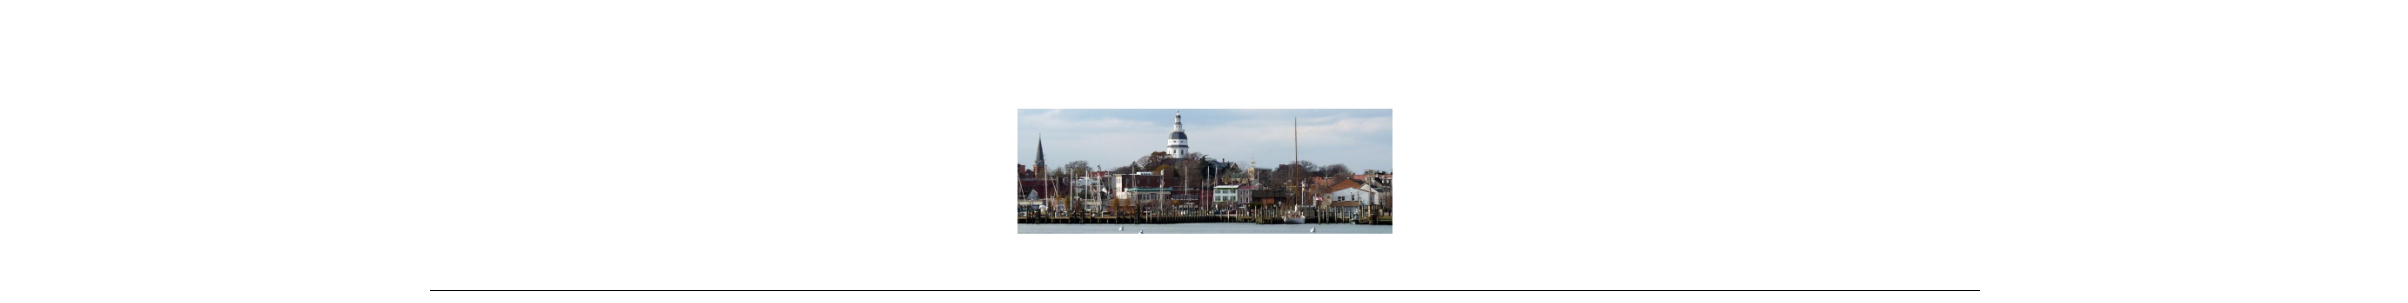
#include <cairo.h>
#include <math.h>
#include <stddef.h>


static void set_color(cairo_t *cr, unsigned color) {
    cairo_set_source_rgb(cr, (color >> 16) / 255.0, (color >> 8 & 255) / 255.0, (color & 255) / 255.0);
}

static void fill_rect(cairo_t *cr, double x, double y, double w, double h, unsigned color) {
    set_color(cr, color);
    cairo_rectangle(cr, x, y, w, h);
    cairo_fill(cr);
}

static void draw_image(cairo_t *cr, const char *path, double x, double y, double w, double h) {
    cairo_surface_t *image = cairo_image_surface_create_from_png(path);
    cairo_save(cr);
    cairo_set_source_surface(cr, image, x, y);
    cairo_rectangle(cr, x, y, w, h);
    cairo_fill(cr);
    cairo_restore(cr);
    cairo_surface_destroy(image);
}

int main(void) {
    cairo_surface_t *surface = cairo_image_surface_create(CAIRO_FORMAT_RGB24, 2408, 303);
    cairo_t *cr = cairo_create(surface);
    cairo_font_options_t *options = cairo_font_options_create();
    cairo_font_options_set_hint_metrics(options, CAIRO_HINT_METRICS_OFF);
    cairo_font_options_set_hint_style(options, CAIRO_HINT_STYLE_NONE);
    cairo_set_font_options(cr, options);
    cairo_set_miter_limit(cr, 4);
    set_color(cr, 0xFFFFFF);
    cairo_paint(cr);
    fill_rect(cr, 430, 290, 1550, 1, 0x000000);
    draw_image(cr, "assets/img1.png", 1017, 108, 376, 126);
    cairo_surface_write_to_png(surface, "output.png");
    cairo_font_options_destroy(options);
    cairo_destroy(cr);
    cairo_surface_destroy(surface);
    return 0;
}
